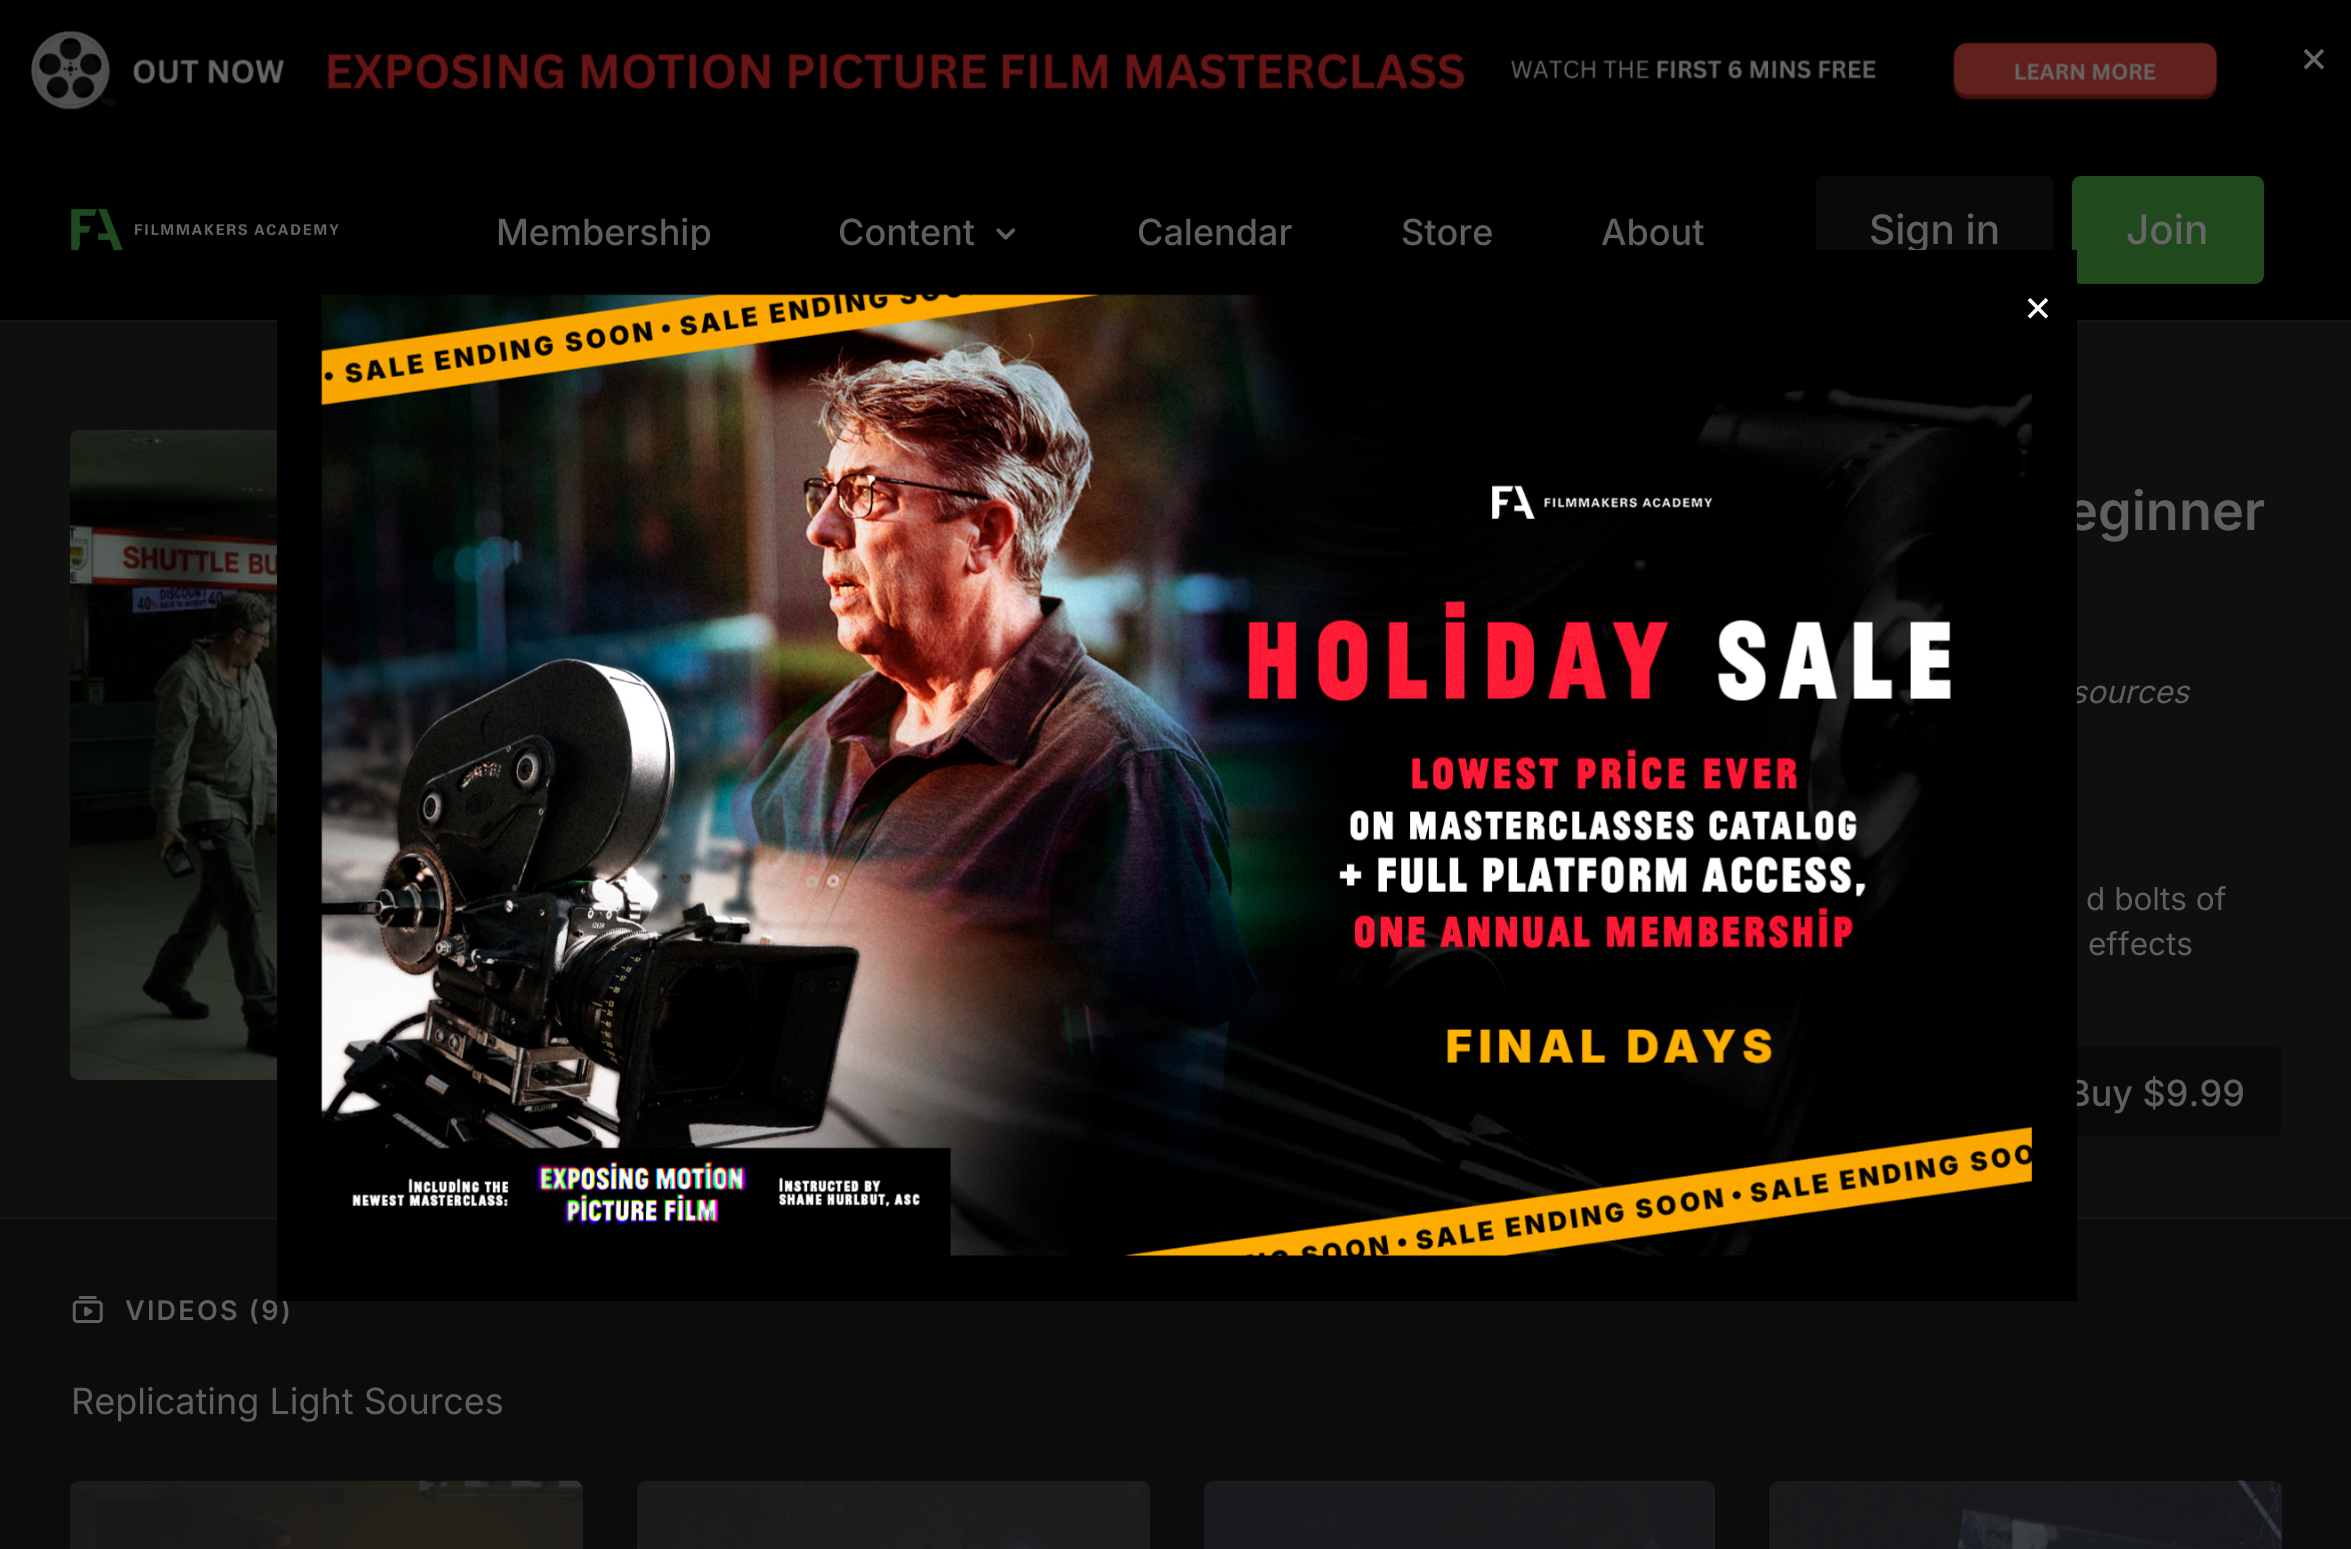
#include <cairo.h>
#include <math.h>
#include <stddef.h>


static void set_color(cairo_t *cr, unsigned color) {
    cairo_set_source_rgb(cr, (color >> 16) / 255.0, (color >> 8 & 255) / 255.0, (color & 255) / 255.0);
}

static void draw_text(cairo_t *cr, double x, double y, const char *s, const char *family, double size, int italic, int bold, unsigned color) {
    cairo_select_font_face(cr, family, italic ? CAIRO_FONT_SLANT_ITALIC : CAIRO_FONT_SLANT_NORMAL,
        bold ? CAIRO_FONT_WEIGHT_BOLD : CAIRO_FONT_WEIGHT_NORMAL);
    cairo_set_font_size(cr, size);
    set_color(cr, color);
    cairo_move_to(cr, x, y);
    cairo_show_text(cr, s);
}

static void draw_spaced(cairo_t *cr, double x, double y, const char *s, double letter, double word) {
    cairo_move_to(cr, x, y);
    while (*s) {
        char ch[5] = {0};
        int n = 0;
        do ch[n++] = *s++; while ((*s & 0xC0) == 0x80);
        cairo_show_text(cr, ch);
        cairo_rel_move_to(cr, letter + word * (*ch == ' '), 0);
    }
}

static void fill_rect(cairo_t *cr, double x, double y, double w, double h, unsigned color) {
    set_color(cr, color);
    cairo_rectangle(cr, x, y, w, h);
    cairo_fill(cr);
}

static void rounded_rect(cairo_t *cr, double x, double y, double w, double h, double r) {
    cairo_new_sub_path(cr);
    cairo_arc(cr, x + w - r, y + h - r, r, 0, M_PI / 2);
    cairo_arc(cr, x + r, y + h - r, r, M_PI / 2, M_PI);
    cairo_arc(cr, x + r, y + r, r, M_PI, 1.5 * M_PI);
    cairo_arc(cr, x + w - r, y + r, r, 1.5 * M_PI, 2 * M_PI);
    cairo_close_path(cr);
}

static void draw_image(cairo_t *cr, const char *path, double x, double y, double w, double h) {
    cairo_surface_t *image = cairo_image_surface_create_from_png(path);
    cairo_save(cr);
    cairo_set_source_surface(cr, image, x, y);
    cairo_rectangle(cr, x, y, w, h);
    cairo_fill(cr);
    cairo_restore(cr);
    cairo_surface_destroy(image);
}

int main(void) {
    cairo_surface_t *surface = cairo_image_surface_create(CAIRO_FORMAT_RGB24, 2351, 1549);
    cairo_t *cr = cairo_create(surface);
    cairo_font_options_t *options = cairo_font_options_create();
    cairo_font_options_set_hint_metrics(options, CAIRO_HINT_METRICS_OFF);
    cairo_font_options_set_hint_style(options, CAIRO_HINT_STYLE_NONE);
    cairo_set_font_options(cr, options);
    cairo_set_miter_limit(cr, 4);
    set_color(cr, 0x0F0F0F);
    cairo_paint(cr);
    fill_rect(cr, 0, 0, 2351, 320, 0x000000);
    draw_image(cr, "assets/img1.png", 31, 30, 2187, 80);
    draw_text(cr, 2299, 72, "×", "Inter", 45, 0, 0, 0x666666);
    fill_rect(cr, 0, 320, 2351, 2, 0x161616);
    draw_image(cr, "assets/img2.png", 71, 209, 268, 42);
    draw_text(cr, 496, 245, "Membership", "Inter Medium", 36, 0, 0, 0x5F5F5F);
    draw_text(cr, 838, 245, "Content", "Inter Medium", 36, 0, 0, 0x5F5F5F);
    draw_image(cr, "assets/img3.png", 996, 228, 20, 12);
    draw_text(cr, 1137, 245, "Calendar", "Inter Medium", 36, 0, 0, 0x5F5F5F);
    draw_text(cr, 1401, 245, "Store", "Inter Medium", 36, 0, 0, 0x5F5F5F);
    draw_text(cr, 1601, 245, "About", "Inter Medium", 36, 0, 0, 0x5F5F5F);
    set_color(cr, 0x090909);
    rounded_rect(cr, 1816, 176, 238, 108, 9);
    cairo_fill(cr);
    draw_text(cr, 1869, 244, "Sign in", "Inter Medium", 40.5, 0, 0, 0x5F5F5F);
    set_color(cr, 0x204A1D);
    rounded_rect(cr, 2072, 176, 192, 108, 9);
    cairo_fill(cr);
    draw_text(cr, 2126, 244, "Join", "Inter Medium", 40.5, 0, 0, 0x666666);
    draw_text(cr, 2066, 530, "eginner", "Inter SemiBold", 54, 0, 0, 0x5F5F5F);
    draw_text(cr, 2070, 703, "sources", "Inter", 31.5, 1, 0, 0x5F5F5F);
    set_color(cr, 0x090909);
    rounded_rect(cr, 2032, 1046, 250, 90, 9);
    cairo_fill(cr);
    draw_text(cr, 2067, 1106, "Buy $9.99", "Inter Medium", 36, 0, 0, 0x5F5F5F);
    fill_rect(cr, 0, 1220, 2351, 329, 0x0C0C0C);
    fill_rect(cr, 0, 1217, 2351, 2, 0x161616);
    cairo_select_font_face(cr, "Inter SemiBold", CAIRO_FONT_SLANT_NORMAL, CAIRO_FONT_WEIGHT_NORMAL);
    cairo_set_font_size(cr, 27);
    set_color(cr, 0x5F5F5F);
    draw_spaced(cr, 125, 1320, "VIDEOS (9)", 2.25, 0);
    fill_rect(cr, 277, 250, 1800, 1051, 0x000000);
    draw_image(cr, "assets/img4.png", 321, 294, 1711, 962);
    draw_text(cr, 2023, 321, "×", "Inter", 45, 0, 0, 0xFFFFFF);
    draw_image(cr, "assets/img5.png", 69, 429, 208, 651);
    draw_text(cr, 2086, 910, "d bolts of", "Inter", 31.5, 0, 0, 0x5F5F5F);
    draw_text(cr, 2088, 955, "effects", "Inter", 31.5, 0, 0, 0x5F5F5F);
    draw_image(cr, "assets/img6.png", 72, 1296, 31, 27);
    draw_text(cr, 71, 1414, "Replicating Light Sources", "Inter", 36, 0, 0, 0x5F5F5F);
    draw_image(cr, "assets/img7.png", 70, 1480, 513, 69);
    cairo_set_source_rgba(cr, 0.153, 0.161, 0.173, 0.6);
    rounded_rect(cr, 70, 1481, 513, 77, 9);
    cairo_fill(cr);
    draw_image(cr, "assets/img8.png", 637, 1480, 513, 69);
    rounded_rect(cr, 637, 1481, 513, 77, 9);
    cairo_fill(cr);
    draw_image(cr, "assets/img9.png", 1204, 1481, 510, 68);
    rounded_rect(cr, 1204, 1481, 511, 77, 9);
    cairo_fill(cr);
    draw_image(cr, "assets/img10.png", 1768, 1480, 514, 69);
    rounded_rect(cr, 1769, 1481, 513, 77, 9);
    cairo_fill(cr);
    cairo_surface_write_to_png(surface, "output.png");
    cairo_font_options_destroy(options);
    cairo_destroy(cr);
    cairo_surface_destroy(surface);
    return 0;
}
